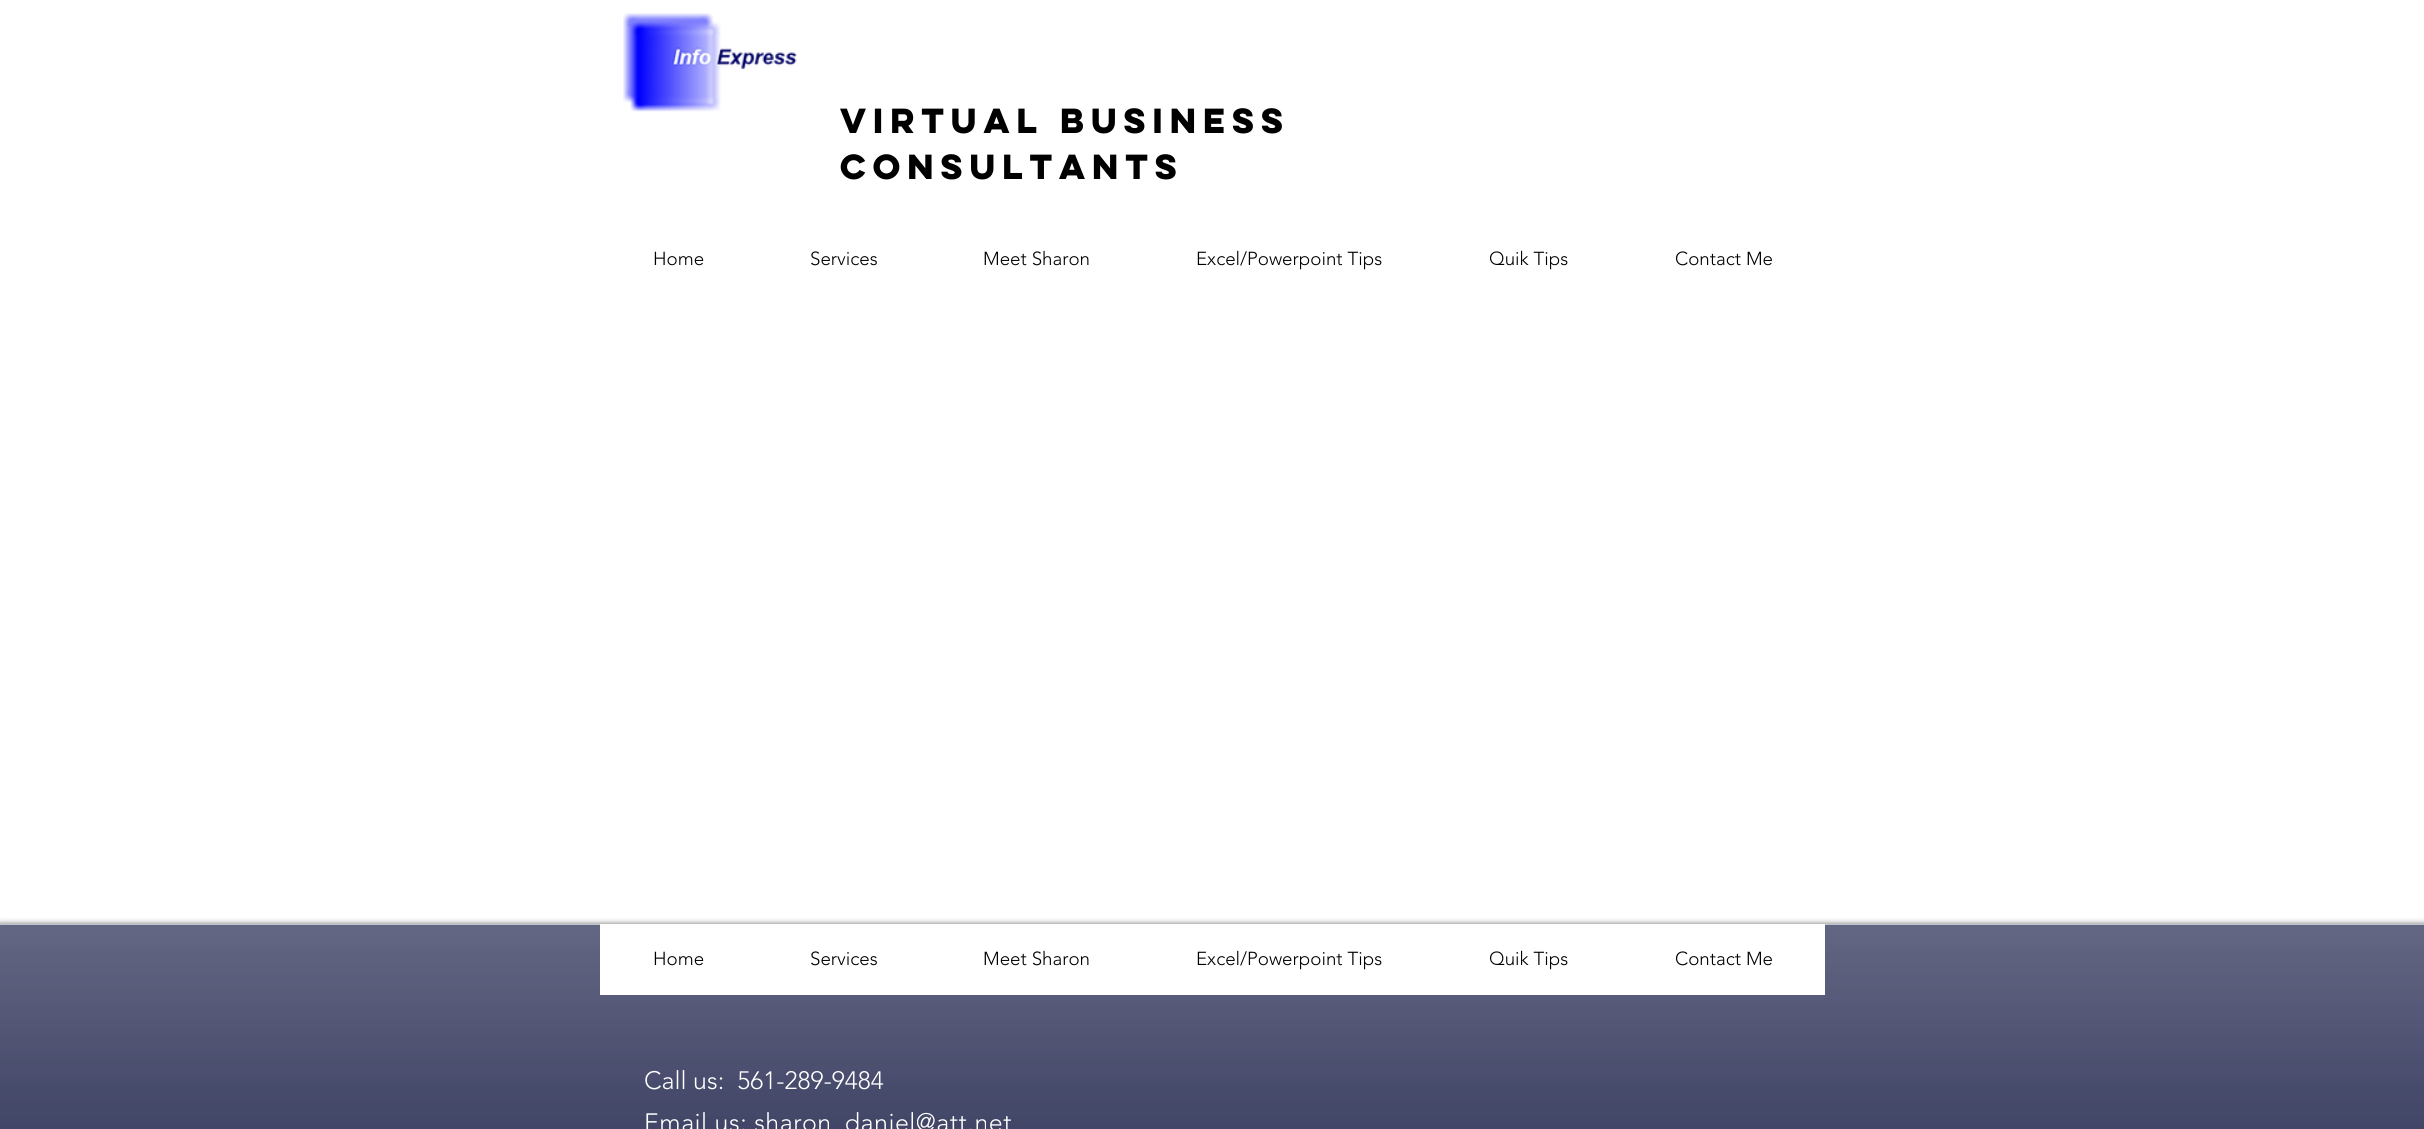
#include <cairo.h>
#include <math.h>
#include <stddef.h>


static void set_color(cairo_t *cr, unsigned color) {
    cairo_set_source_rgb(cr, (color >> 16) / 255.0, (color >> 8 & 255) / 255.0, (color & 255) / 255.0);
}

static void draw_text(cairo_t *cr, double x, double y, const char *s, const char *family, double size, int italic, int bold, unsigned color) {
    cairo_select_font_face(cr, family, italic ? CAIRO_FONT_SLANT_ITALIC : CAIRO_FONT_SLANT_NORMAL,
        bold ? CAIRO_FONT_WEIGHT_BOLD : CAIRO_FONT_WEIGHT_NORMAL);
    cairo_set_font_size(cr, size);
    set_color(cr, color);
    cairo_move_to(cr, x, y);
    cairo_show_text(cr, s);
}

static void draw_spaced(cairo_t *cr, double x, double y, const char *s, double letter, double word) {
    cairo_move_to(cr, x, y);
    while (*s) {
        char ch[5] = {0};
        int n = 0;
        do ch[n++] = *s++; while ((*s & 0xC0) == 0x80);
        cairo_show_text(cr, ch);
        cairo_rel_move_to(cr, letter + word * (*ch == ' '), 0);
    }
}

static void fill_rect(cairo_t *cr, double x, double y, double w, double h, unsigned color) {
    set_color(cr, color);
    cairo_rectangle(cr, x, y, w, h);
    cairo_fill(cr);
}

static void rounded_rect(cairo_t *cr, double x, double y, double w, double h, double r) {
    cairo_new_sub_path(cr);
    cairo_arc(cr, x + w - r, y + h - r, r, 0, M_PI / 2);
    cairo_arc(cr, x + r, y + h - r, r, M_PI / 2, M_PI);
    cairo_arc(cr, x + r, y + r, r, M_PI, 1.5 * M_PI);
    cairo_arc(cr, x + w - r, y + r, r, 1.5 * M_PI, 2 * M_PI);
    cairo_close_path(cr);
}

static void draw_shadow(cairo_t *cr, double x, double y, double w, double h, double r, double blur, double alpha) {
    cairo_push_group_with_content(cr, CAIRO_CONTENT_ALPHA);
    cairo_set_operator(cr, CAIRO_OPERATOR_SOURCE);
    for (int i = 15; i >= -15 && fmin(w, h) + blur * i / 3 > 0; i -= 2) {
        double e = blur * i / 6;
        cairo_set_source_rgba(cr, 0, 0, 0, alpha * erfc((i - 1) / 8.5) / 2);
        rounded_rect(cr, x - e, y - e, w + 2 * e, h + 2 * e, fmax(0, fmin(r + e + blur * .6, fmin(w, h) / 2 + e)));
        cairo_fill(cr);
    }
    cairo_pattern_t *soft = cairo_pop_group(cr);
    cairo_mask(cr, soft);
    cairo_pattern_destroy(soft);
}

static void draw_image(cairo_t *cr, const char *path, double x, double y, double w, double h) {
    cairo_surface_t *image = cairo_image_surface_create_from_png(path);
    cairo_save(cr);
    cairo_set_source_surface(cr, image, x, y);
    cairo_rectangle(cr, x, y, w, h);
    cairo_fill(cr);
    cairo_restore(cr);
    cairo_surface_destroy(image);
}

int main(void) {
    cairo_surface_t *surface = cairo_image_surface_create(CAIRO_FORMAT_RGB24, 2424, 1129);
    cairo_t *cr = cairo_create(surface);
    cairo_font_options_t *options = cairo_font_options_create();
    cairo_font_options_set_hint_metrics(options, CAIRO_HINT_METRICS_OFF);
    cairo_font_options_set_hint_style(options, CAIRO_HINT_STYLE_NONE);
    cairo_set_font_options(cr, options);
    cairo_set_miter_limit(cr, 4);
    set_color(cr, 0xFFFFFF);
    cairo_paint(cr);
    draw_image(cr, "assets/img1.png", 623, 13, 174, 99);
    draw_text(cr, 840, 133, "Virtual Business", "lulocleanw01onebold", 31.25, 0, 1, 0x000000);
    draw_text(cr, 840, 179, "Consultants", "lulocleanw01onebold", 31.25, 0, 1, 0x000000);
    draw_text(cr, 653, 265, "Home", "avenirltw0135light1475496 Light", 18.75, 0, 0, 0x000000);
    draw_text(cr, 810, 265, "Services", "avenirltw0135light1475496 Light", 18.75, 0, 0, 0x000000);
    draw_text(cr, 983, 265, "Meet Sharon", "avenirltw0135light1475496 Light", 18.75, 0, 0, 0x000000);
    draw_text(cr, 1196, 265, "Excel/Powerpoint Tips", "avenirltw0135light1475496 Light", 18.75, 0, 0, 0x000000);
    draw_text(cr, 1489, 265, "Quik Tips", "avenirltw0135light1475496 Light", 18.75, 0, 0, 0x000000);
    draw_text(cr, 1675, 265, "Contact Me", "avenirltw0135light1475496 Light", 18.75, 0, 0, 0x000000);
    set_color(cr, 0x000000);
    draw_shadow(cr, 0, 924, 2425, 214, 0, 3, 0.6);
    fill_rect(cr, 0, 925, 2424, 204, 0x2E3257);
    draw_image(cr, "assets/img2.png", 0, 925, 2424, 204);
    fill_rect(cr, 0, 924, 2424, 1, 0xC1C2CD);
    fill_rect(cr, 600, 924, 1225, 71, 0xFFFFFF);
    draw_text(cr, 653, 965, "Home", "avenirltw0135light1475496 Light", 18.75, 0, 0, 0x000000);
    draw_text(cr, 810, 965, "Services", "avenirltw0135light1475496 Light", 18.75, 0, 0, 0x000000);
    draw_text(cr, 983, 965, "Meet Sharon", "avenirltw0135light1475496 Light", 18.75, 0, 0, 0x000000);
    draw_text(cr, 1196, 965, "Excel/Powerpoint Tips", "avenirltw0135light1475496 Light", 18.75, 0, 0, 0x000000);
    draw_text(cr, 1489, 965, "Quik Tips", "avenirltw0135light1475496 Light", 18.75, 0, 0, 0x000000);
    draw_text(cr, 1675, 965, "Contact Me", "avenirltw0135light1475496 Light", 18.75, 0, 0, 0x000000);
    draw_text(cr, 644, 1089, "Call us:  561-289-9484", "avenirltw0135light1475496 Light", 25, 0, 0, 0xFFFFFF);
    draw_spaced(cr, 644, 1131, "Email us: sharon_daniel@att.net", 0.5, 0);
    cairo_surface_write_to_png(surface, "output.png");
    cairo_font_options_destroy(options);
    cairo_destroy(cr);
    cairo_surface_destroy(surface);
    return 0;
}
